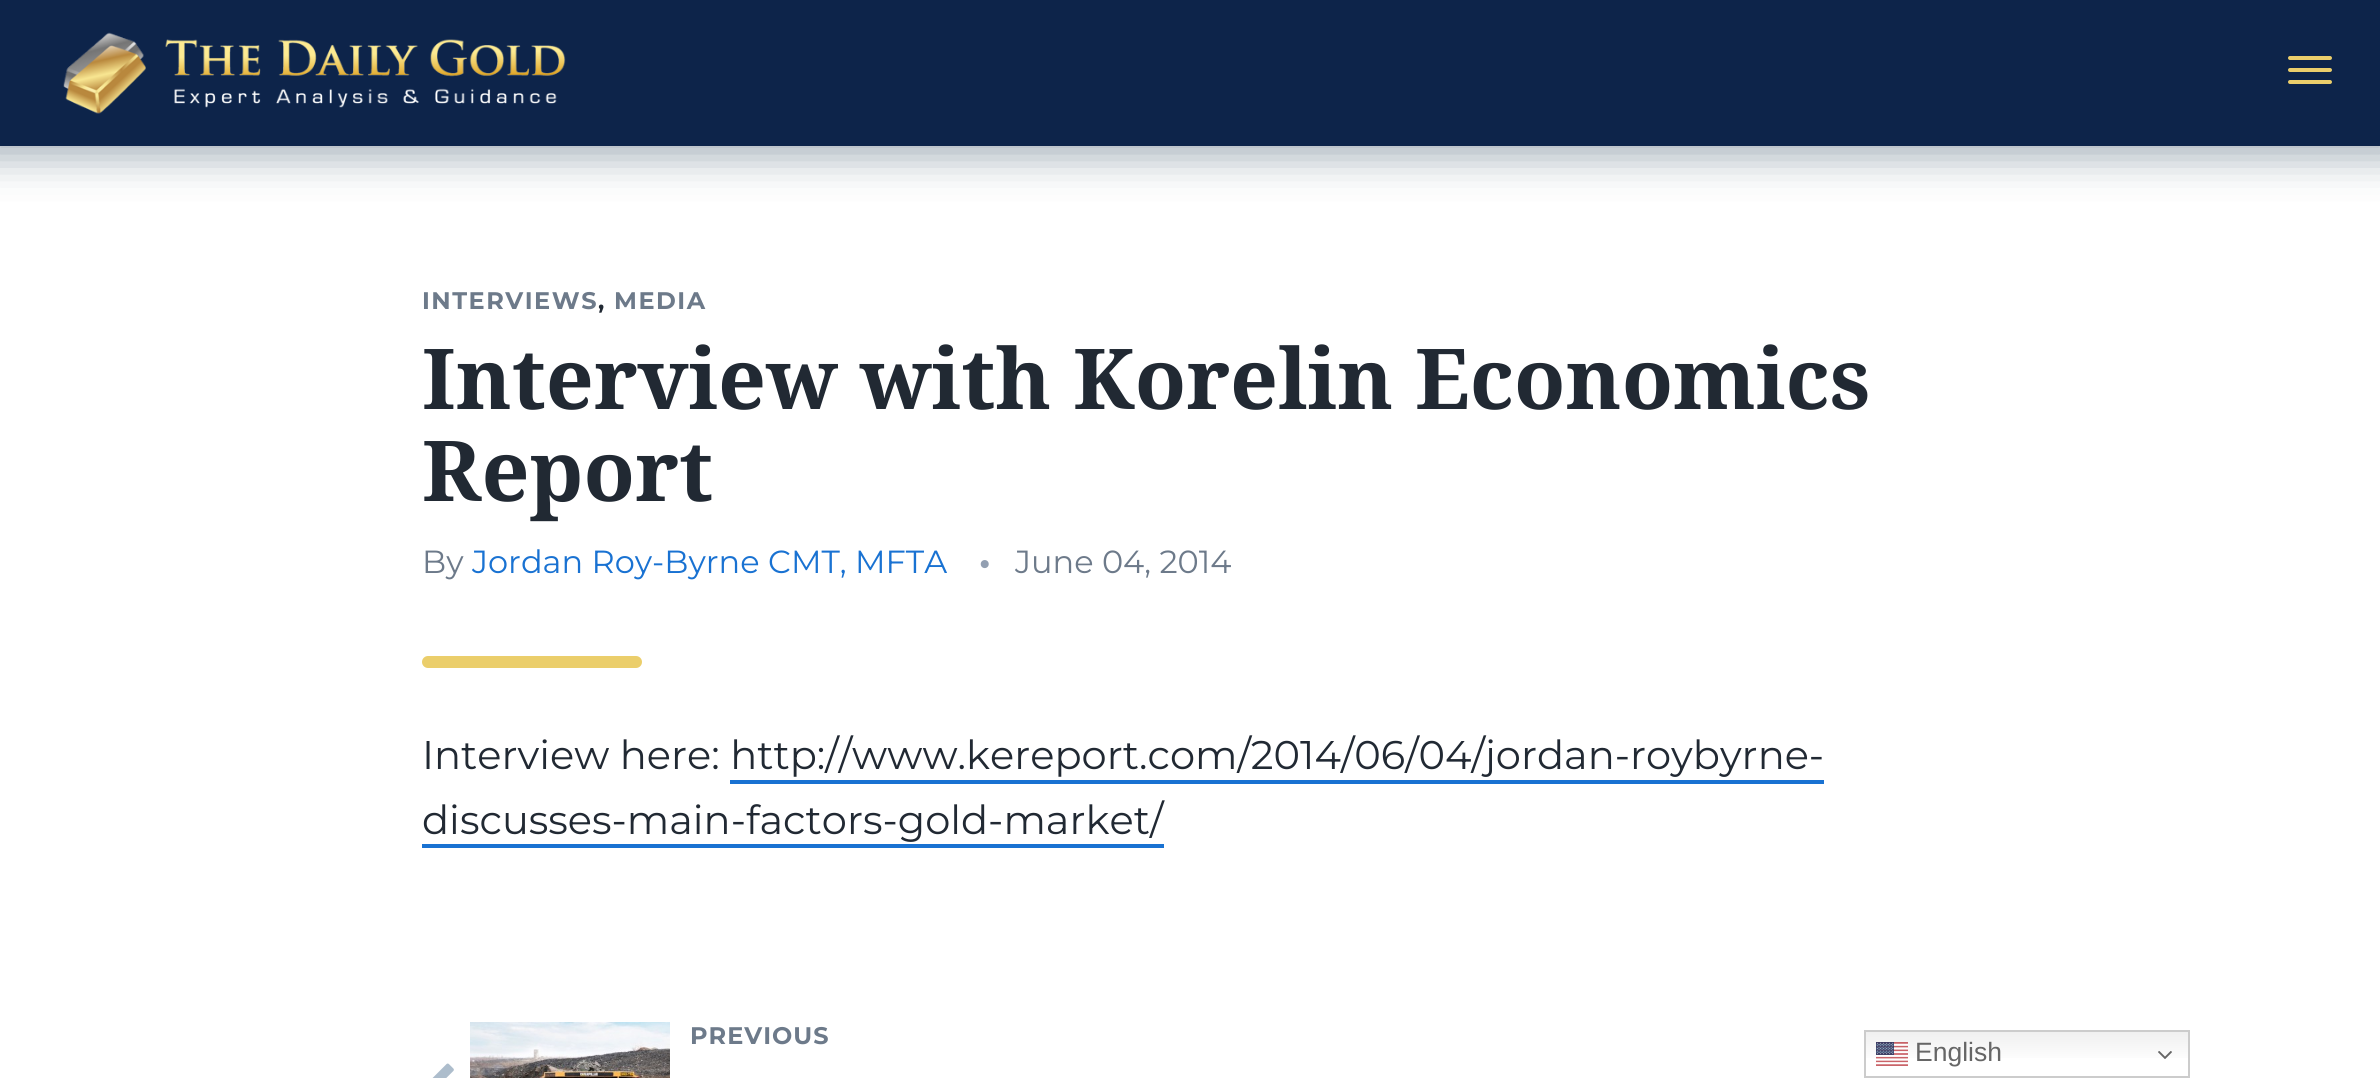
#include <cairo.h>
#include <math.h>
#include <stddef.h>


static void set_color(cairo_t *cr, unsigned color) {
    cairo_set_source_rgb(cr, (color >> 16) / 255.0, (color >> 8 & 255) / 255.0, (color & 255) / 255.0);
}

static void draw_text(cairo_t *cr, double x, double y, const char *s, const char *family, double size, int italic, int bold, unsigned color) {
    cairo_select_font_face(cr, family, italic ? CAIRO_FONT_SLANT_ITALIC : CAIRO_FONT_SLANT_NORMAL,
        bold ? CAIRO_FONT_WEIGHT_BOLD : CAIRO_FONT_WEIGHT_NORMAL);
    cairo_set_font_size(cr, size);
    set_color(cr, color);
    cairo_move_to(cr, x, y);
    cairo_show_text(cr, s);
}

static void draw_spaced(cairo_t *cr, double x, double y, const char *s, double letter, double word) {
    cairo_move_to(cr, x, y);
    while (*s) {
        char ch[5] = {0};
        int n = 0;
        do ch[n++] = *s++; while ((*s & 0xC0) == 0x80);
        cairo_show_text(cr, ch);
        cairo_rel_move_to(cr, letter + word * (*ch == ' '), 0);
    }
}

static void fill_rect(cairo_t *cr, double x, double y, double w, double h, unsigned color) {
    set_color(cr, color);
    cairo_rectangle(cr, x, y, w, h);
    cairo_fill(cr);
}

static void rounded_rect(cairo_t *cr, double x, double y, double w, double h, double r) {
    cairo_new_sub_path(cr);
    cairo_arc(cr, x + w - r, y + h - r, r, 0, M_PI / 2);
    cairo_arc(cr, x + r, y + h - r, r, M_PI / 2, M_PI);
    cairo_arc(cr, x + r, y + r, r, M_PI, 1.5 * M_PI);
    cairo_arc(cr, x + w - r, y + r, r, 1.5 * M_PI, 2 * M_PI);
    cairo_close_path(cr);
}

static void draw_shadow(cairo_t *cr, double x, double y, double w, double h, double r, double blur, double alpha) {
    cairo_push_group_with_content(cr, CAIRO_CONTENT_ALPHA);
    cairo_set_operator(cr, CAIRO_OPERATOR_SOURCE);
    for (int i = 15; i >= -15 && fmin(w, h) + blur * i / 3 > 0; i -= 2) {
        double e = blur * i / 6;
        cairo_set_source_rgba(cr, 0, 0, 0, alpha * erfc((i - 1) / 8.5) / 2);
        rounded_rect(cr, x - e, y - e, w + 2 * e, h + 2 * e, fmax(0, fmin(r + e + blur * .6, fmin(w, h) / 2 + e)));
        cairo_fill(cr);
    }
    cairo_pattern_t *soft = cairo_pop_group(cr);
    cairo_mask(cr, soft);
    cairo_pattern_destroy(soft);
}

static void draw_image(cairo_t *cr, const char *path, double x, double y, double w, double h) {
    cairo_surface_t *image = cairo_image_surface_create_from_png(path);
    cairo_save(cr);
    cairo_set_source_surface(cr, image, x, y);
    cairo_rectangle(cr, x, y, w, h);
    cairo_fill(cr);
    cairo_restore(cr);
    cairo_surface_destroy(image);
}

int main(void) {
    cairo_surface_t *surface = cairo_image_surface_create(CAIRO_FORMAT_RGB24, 2380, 1078);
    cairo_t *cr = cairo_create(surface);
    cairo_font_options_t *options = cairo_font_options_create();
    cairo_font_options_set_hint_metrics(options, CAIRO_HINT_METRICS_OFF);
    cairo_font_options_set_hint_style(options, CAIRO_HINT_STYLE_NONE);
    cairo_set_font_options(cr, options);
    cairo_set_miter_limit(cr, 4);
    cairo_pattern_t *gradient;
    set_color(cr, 0xFFFFFF);
    cairo_paint(cr);
    set_color(cr, 0x02203C);
    draw_shadow(cr, -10, -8, 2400, 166, 0, 20, 0.35);
    fill_rect(cr, 0, 0, 2380, 146, 0x0D244A);
    draw_image(cr, "assets/img1.png", 63, 32, 503, 82);
    set_color(cr, 0xEBCE6B);
    rounded_rect(cr, 2288, 56, 44, 4, 2);
    cairo_fill(cr);
    rounded_rect(cr, 2288, 68, 44, 4, 2);
    cairo_fill(cr);
    rounded_rect(cr, 2288, 80, 44, 4, 2);
    cairo_fill(cr);
    cairo_select_font_face(cr, "Montserrat Thin", CAIRO_FONT_SLANT_NORMAL, CAIRO_FONT_WEIGHT_NORMAL);
    cairo_set_font_size(cr, 24);
    set_color(cr, 0x6D7A8A);
    draw_spaced(cr, 422, 309, "INTERVIEWS", 1.5, 0);
    set_color(cr, 0x212933);
    draw_spaced(cr, 598, 309, ",", 1.5, 0);
    set_color(cr, 0x6D7A8A);
    draw_spaced(cr, 614, 309, "MEDIA", 1.5, 0);
    draw_text(cr, 422, 409, "Interview with Korelin Economics", "Noto Serif", 84, 0, 1, 0x212933);
    draw_text(cr, 422, 501, "Report", "Noto Serif", 84, 0, 1, 0x212933);
    draw_text(cr, 422, 573, "By", "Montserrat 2 Thin", 32, 0, 0, 0x6D7A8A);
    draw_text(cr, 472, 573, "Jordan Roy-Byrne CMT, MFTA", "Montserrat 2 Thin", 32, 0, 0, 0x1972D2);
    draw_text(cr, 979, 573, "•", "Montserrat Thin", 32, 0, 0, 0x929FB1);
    draw_text(cr, 1015, 573, "June 04, 2014", "Montserrat 2 Thin", 32, 0, 0, 0x6D7A8A);
    set_color(cr, 0xEBCE6B);
    rounded_rect(cr, 422, 656, 220, 12, 6);
    cairo_fill(cr);
    draw_text(cr, 422, 769, "Interview here: http://www.kereport.com/2014/06/04/jordan-roybyrne-", "Montserrat 2 Thin", 40, 0, 0, 0x212933);
    draw_text(cr, 422, 834, "discusses-main-factors-gold-market/", "Montserrat 2 Thin", 40, 0, 0, 0x212933);
    fill_rect(cr, 730, 780, 1094, 4, 0x1972D2);
    fill_rect(cr, 422, 844, 742, 4, 0x1972D2);
    draw_image(cr, "assets/img2.png", 470, 1022, 200, 56);
    cairo_select_font_face(cr, "Montserrat Thin", CAIRO_FONT_SLANT_NORMAL, CAIRO_FONT_WEIGHT_NORMAL);
    cairo_set_font_size(cr, 24);
    set_color(cr, 0x6D7A8A);
    draw_spaced(cr, 690, 1044, "PREVIOUS", 1, 0);
    draw_image(cr, "assets/img3.png", 432, 1063, 22, 15);
    gradient = cairo_pattern_create_linear(2027, 1030, 2027, 1078);
    cairo_pattern_add_color_stop_rgba(gradient, 0, 0.937, 0.937, 0.937, 1);
    cairo_pattern_add_color_stop_rgba(gradient, 0.7, 1, 1, 1, 1);
    cairo_set_source(cr, gradient);
    cairo_pattern_destroy(gradient);
    cairo_rectangle(cr, 1866, 1032, 322, 26);
    cairo_fill(cr);
    cairo_rectangle(cr, 1865, 1031, 324, 46);
    set_color(cr, 0xCCCCCC);
    cairo_stroke(cr);
    draw_image(cr, "assets/img4.png", 1876, 1042, 32, 24);
    draw_text(cr, 1915, 1061, "English", "Liberation Sans", 26.5, 0, 0, 0x666666);
    draw_image(cr, "assets/img5.png", 2158, 1051, 14, 8);
    cairo_surface_write_to_png(surface, "output.png");
    cairo_font_options_destroy(options);
    cairo_destroy(cr);
    cairo_surface_destroy(surface);
    return 0;
}
